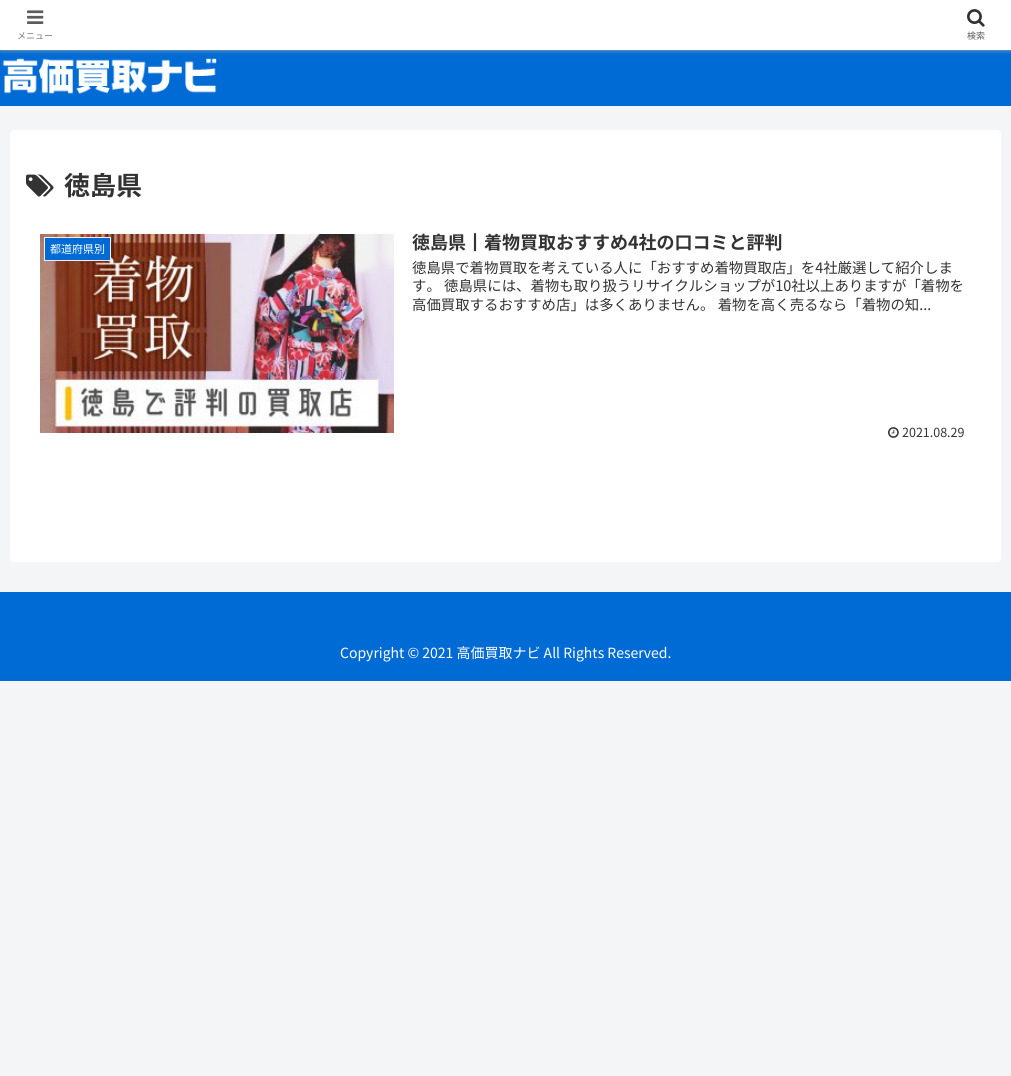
#include <cairo.h>
#include <math.h>
#include <stddef.h>


static void set_color(cairo_t *cr, unsigned color) {
    cairo_set_source_rgb(cr, (color >> 16) / 255.0, (color >> 8 & 255) / 255.0, (color & 255) / 255.0);
}

static void draw_text(cairo_t *cr, double x, double y, const char *s, const char *family, double size, int italic, int bold, unsigned color) {
    cairo_select_font_face(cr, family, italic ? CAIRO_FONT_SLANT_ITALIC : CAIRO_FONT_SLANT_NORMAL,
        bold ? CAIRO_FONT_WEIGHT_BOLD : CAIRO_FONT_WEIGHT_NORMAL);
    cairo_set_font_size(cr, size);
    set_color(cr, color);
    cairo_move_to(cr, x, y);
    cairo_show_text(cr, s);
}

static void fill_rect(cairo_t *cr, double x, double y, double w, double h, unsigned color) {
    set_color(cr, color);
    cairo_rectangle(cr, x, y, w, h);
    cairo_fill(cr);
}

static void rounded_rect(cairo_t *cr, double x, double y, double w, double h, double r) {
    cairo_new_sub_path(cr);
    cairo_arc(cr, x + w - r, y + h - r, r, 0, M_PI / 2);
    cairo_arc(cr, x + r, y + h - r, r, M_PI / 2, M_PI);
    cairo_arc(cr, x + r, y + r, r, M_PI, 1.5 * M_PI);
    cairo_arc(cr, x + w - r, y + r, r, 1.5 * M_PI, 2 * M_PI);
    cairo_close_path(cr);
}

static void draw_shadow(cairo_t *cr, double x, double y, double w, double h, double r, double blur, double alpha) {
    cairo_push_group_with_content(cr, CAIRO_CONTENT_ALPHA);
    cairo_set_operator(cr, CAIRO_OPERATOR_SOURCE);
    for (int i = 15; i >= -15 && fmin(w, h) + blur * i / 3 > 0; i -= 2) {
        double e = blur * i / 6;
        cairo_set_source_rgba(cr, 0, 0, 0, alpha * erfc((i - 1) / 8.5) / 2);
        rounded_rect(cr, x - e, y - e, w + 2 * e, h + 2 * e, fmax(0, fmin(r + e + blur * .6, fmin(w, h) / 2 + e)));
        cairo_fill(cr);
    }
    cairo_pattern_t *soft = cairo_pop_group(cr);
    cairo_mask(cr, soft);
    cairo_pattern_destroy(soft);
}

static void draw_image(cairo_t *cr, const char *path, double x, double y, double w, double h) {
    cairo_surface_t *image = cairo_image_surface_create_from_png(path);
    cairo_save(cr);
    cairo_set_source_surface(cr, image, x, y);
    cairo_rectangle(cr, x, y, w, h);
    cairo_fill(cr);
    cairo_restore(cr);
    cairo_surface_destroy(image);
}

int main(void) {
    cairo_surface_t *surface = cairo_image_surface_create(CAIRO_FORMAT_RGB24, 1011, 1076);
    cairo_t *cr = cairo_create(surface);
    cairo_font_options_t *options = cairo_font_options_create();
    cairo_font_options_set_hint_metrics(options, CAIRO_HINT_METRICS_OFF);
    cairo_font_options_set_hint_style(options, CAIRO_HINT_STYLE_NONE);
    cairo_set_font_options(cr, options);
    cairo_set_miter_limit(cr, 4);
    set_color(cr, 0xF4F5F7);
    cairo_paint(cr);
    fill_rect(cr, 0, 50, 1011, 56, 0x006AD5);
    draw_image(cr, "assets/img3.png", 2, 58, 215, 36);
    set_color(cr, 0xA9A9A9);
    draw_shadow(cr, 0, 0, 1011, 50, 0, 2.5, 1);
    fill_rect(cr, 0, 0, 1011, 50, 0xFFFFFF);
    draw_image(cr, "assets/img1.png", 27, 10, 17, 14);
    draw_text(cr, 17, 39, "メニュー", "Noto Sans JP", 9, 0, 0, 0x7C7C7C);
    draw_image(cr, "assets/img2.png", 967, 9, 18, 18);
    draw_text(cr, 967, 39, "検索", "Noto Sans JP", 9, 0, 0, 0x5C5C5C);
    set_color(cr, 0xFFFFFF);
    rounded_rect(cr, 10, 130, 991, 432, 4);
    cairo_fill(cr);
    draw_image(cr, "assets/img4.png", 26, 174, 28, 23);
    draw_text(cr, 64, 195, "徳島県", "Noto Sans JP", 26, 0, 1, 0x333333);
    draw_image(cr, "assets/img5.png", 40, 234, 354, 199);
    set_color(cr, 0x006AD5);
    cairo_rectangle(cr, 44.5, 237.5, 66, 23);
    cairo_fill_preserve(cr);
    set_color(cr, 0xEEEEEE);
    cairo_set_line_width(cr, 1);
    cairo_stroke(cr);
    draw_text(cr, 50, 253, "都道府県別", "Noto Sans JP", 11, 0, 0, 0xFFFFFF);
    draw_text(cr, 412, 249, "徳島県┃着物買取おすすめ4社の口コミと評判", "Noto Sans JP", 18, 0, 1, 0x333333);
    draw_text(cr, 412, 273, "徳島県で着物買取を考えている人に「おすすめ着物買取店」を4社厳選して紹介しま", "Noto Sans JP", 14.4, 0, 0, 0x333333);
    draw_text(cr, 412, 291, "す。 徳島県には、着物も取り扱うリサイクルショップが10社以上ありますが「着物を", "Noto Sans JP", 14.4, 0, 0, 0x333333);
    draw_text(cr, 412, 310, "高価買取するおすすめ店」は多くありません。 着物を高く売るなら「着物の知...", "Noto Sans JP", 14.4, 0, 0, 0x333333);
    draw_image(cr, "assets/img6.png", 888, 427, 11, 11);
    draw_text(cr, 902, 437, "2021.08.29", "Noto Sans JP", 12.5, 0, 0, 0x333333);
    fill_rect(cr, 0, 592, 1011, 89, 0x006AD5);
    draw_text(cr, 340, 658, "Copyright © 2021 高価買取ナビ All Rights Reserved.", "Noto Sans JP", 14, 0, 0, 0xFFFFFF);
    cairo_surface_write_to_png(surface, "output.png");
    cairo_font_options_destroy(options);
    cairo_destroy(cr);
    cairo_surface_destroy(surface);
    return 0;
}
